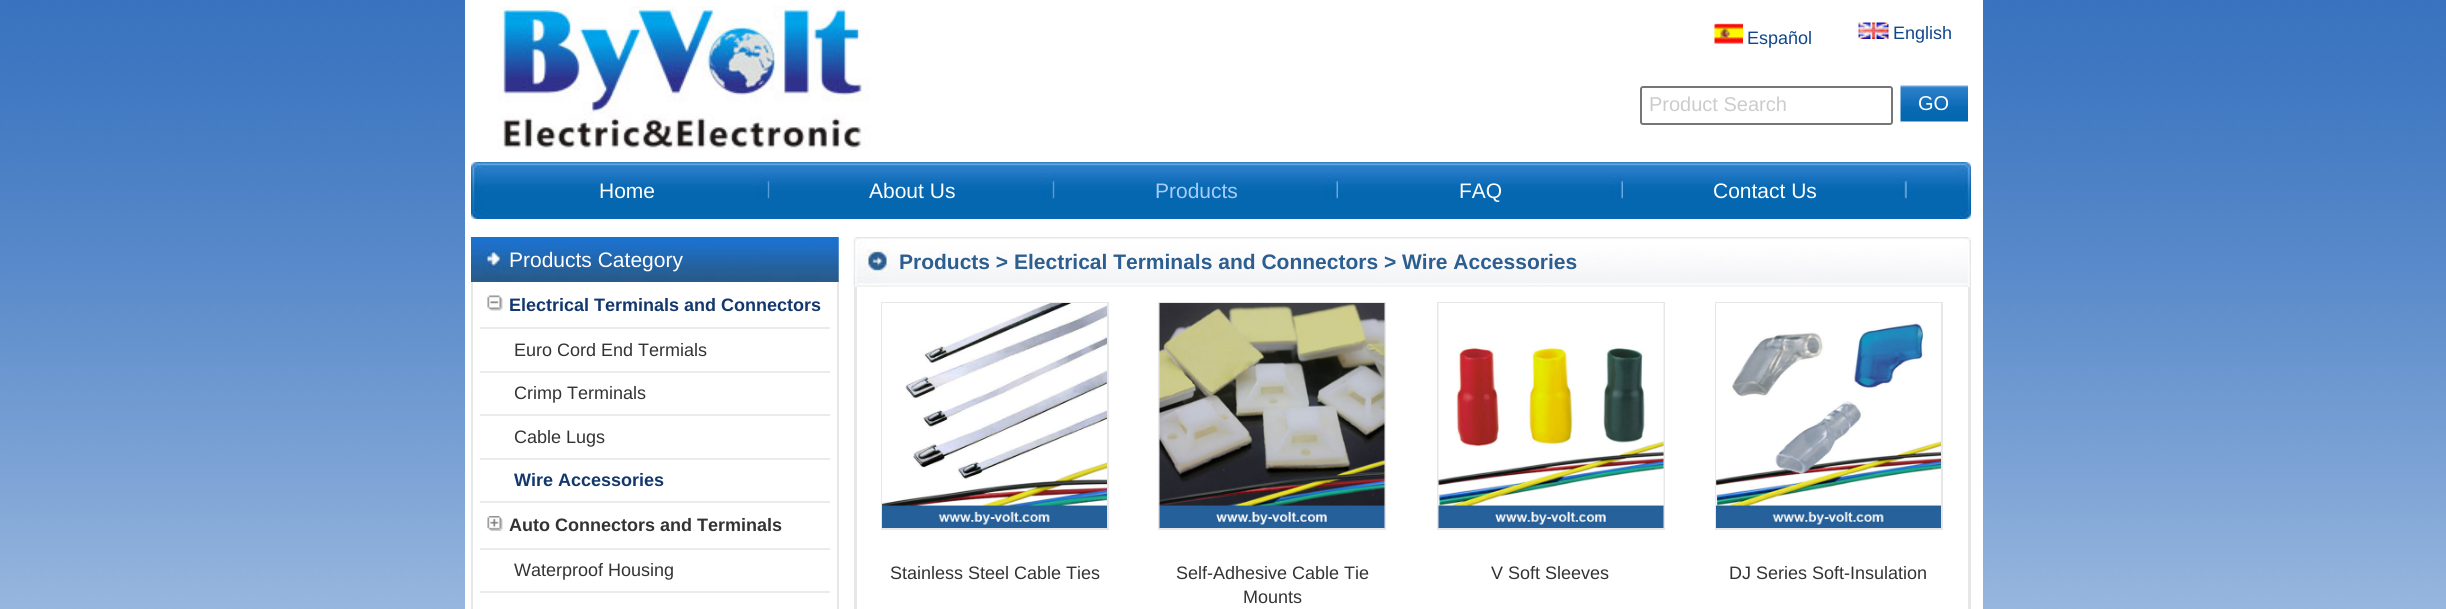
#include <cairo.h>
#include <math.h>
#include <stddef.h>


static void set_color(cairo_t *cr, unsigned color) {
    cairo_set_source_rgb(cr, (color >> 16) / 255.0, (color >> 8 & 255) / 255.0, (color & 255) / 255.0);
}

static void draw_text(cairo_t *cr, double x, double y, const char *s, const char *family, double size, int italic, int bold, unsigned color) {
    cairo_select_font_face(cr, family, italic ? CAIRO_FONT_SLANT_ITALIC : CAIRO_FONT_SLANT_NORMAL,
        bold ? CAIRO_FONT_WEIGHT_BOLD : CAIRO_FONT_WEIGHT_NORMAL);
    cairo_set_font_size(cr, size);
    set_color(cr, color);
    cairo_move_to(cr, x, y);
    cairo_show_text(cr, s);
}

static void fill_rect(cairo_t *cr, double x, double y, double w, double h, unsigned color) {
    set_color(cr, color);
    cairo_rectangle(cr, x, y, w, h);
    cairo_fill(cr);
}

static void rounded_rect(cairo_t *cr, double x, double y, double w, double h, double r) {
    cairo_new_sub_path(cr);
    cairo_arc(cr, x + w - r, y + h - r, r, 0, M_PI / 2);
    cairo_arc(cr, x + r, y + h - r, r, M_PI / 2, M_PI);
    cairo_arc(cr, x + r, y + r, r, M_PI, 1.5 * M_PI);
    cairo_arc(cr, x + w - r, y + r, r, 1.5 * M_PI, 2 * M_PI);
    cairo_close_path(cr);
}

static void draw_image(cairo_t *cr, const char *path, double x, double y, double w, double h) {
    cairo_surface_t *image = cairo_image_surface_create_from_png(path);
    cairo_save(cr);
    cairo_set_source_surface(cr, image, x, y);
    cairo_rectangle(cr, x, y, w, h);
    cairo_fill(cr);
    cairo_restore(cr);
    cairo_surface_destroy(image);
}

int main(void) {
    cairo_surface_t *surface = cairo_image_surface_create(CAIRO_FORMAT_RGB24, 2446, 609);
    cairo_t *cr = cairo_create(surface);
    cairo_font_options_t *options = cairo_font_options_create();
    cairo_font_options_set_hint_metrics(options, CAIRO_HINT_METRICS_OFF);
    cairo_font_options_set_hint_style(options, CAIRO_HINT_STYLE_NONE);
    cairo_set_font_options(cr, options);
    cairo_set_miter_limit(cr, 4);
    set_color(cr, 0xFFFFFF);
    cairo_paint(cr);
    draw_image(cr, "assets/img1.png", 0, 0, 2446, 609);
    fill_rect(cr, 465, 0, 1518, 609, 0xFFFFFF);
    draw_image(cr, "assets/img2.png", 498, 6, 372, 144);
    draw_image(cr, "assets/img3.png", 1714, 23, 29, 21);
    draw_text(cr, 1747, 44, "Español", "Liberation Sans", 18, 0, 0, 0x10478C);
    draw_image(cr, "assets/img4.png", 1858, 22, 31, 17);
    draw_text(cr, 1893, 39, "English", "Liberation Sans", 18, 0, 0, 0x10478C);
    rounded_rect(cr, 1641, 87, 251, 37, 2);
    set_color(cr, 0x767676);
    cairo_stroke(cr);
    draw_text(cr, 1649, 111, "Product Search", "Liberation Sans", 20, 0, 0, 0xCCCCCC);
    draw_image(cr, "assets/img5.png", 1900, 85, 68, 37);
    draw_text(cr, 1918, 110, "GO", "Liberation Sans", 20, 0, 0, 0xFFFFFF);
    draw_image(cr, "assets/img6.png", 486, 162, 1470, 57);
    draw_image(cr, "assets/img7.png", 471, 162, 15, 57);
    draw_image(cr, "assets/img8.png", 758, 174, 12, 25);
    draw_image(cr, "assets/img9.png", 769, 180, 1, 19);
    draw_text(cr, 599, 198, "Home", "Liberation Sans", 21, 0, 0, 0xFFFFFF);
    draw_image(cr, "assets/img10.png", 769, 174, 286, 25);
    draw_image(cr, "assets/img11.png", 769, 180, 286, 19);
    draw_text(cr, 869, 198, "About Us", "Liberation Sans", 21, 0, 0, 0xFFFFFF);
    draw_image(cr, "assets/img12.png", 1054, 174, 284, 25);
    draw_image(cr, "assets/img13.png", 1054, 181, 1, 17);
    draw_text(cr, 1155, 198, "Products", "Liberation Sans", 21, 0, 0, 0xA9CBF9);
    draw_image(cr, "assets/img14.png", 1611, 174, 12, 25);
    draw_text(cr, 1459, 198, "FAQ", "Liberation Sans", 21, 0, 0, 0xFFFFFF);
    draw_image(cr, "assets/img15.png", 1895, 174, 12, 25);
    draw_image(cr, "assets/img16.png", 1906, 180, 1, 19);
    draw_text(cr, 1713, 198, "Contact Us", "Liberation Sans", 21, 0, 0, 0xFFFFFF);
    draw_image(cr, "assets/img17.png", 1956, 162, 15, 57);
    draw_image(cr, "assets/img18.png", 471, 237, 368, 45);
    draw_image(cr, "assets/img19.png", 482, 249, 19, 31);
    draw_text(cr, 509, 267, "Products Category", "Liberation Sans", 21, 0, 0, 0xFFFFFF);
    draw_image(cr, "assets/img20.png", 832, 237, 7, 45);
    fill_rect(cr, 837, 282, 2, 327, 0xE7E7E7);
    fill_rect(cr, 471, 282, 2, 327, 0xE7E7E7);
    fill_rect(cr, 480, 327, 350, 2, 0xEBEBEB);
    draw_image(cr, "assets/img21.png", 487, 295, 16, 16);
    draw_text(cr, 509, 311, "Electrical Terminals and Connectors", "Liberation Sans", 18, 0, 1, 0x13386D);
    fill_rect(cr, 480, 371, 350, 2, 0xEBEBEB);
    draw_text(cr, 514, 356, "Euro Cord End Termials", "Liberation Sans", 18, 0, 0, 0x333333);
    fill_rect(cr, 480, 414, 350, 2, 0xEBEBEB);
    draw_text(cr, 514, 399, "Crimp Terminals", "Liberation Sans", 18, 0, 0, 0x333333);
    fill_rect(cr, 480, 458, 350, 2, 0xEBEBEB);
    draw_text(cr, 514, 443, "Cable Lugs", "Liberation Sans", 18, 0, 0, 0x333333);
    fill_rect(cr, 480, 501, 350, 2, 0xEBEBEB);
    draw_text(cr, 514, 486, "Wire Accessories", "Liberation Sans", 18, 0, 1, 0x13386D);
    fill_rect(cr, 480, 548, 350, 2, 0xEBEBEB);
    draw_image(cr, "assets/img22.png", 487, 516, 16, 15);
    draw_text(cr, 509, 531, "Auto Connectors and Terminals", "Liberation Sans", 18, 0, 1, 0x333333);
    fill_rect(cr, 480, 591, 350, 2, 0xEBEBEB);
    draw_text(cr, 514, 576, "Waterproof Housing", "Liberation Sans", 18, 0, 0, 0x333333);
    draw_image(cr, "assets/img23.png", 853, 237, 1118, 50);
    draw_image(cr, "assets/img24.png", 853, 237, 37, 50);
    draw_text(cr, 899, 269, "Products > Electrical Terminals and Connectors > Wire Accessories", "Liberation Sans", 21, 0, 1, 0x2C5E8F);
    draw_image(cr, "assets/img25.png", 1964, 237, 7, 50);
    fill_rect(cr, 1968, 287, 3, 322, 0xE7E7E7);
    fill_rect(cr, 854, 287, 3, 322, 0xE7E7E7);
    cairo_rectangle(cr, 882, 303, 226, 226);
    cairo_stroke(cr);
    draw_image(cr, "assets/img26.png", 882, 303, 225, 225);
    draw_text(cr, 890, 579, "Stainless Steel Cable Ties", "Liberation Sans", 18, 0, 0, 0x333333);
    cairo_rectangle(cr, 1159, 303, 226, 226);
    set_color(cr, 0xE7E7E7);
    cairo_stroke(cr);
    draw_image(cr, "assets/img27.png", 1159, 303, 226, 225);
    draw_text(cr, 1176, 579, "Self-Adhesive Cable Tie", "Liberation Sans", 18, 0, 0, 0x333333);
    draw_text(cr, 1243, 603, "Mounts", "Liberation Sans", 18, 0, 0, 0x333333);
    cairo_rectangle(cr, 1438, 303, 226, 226);
    set_color(cr, 0xE7E7E7);
    cairo_stroke(cr);
    draw_image(cr, "assets/img28.png", 1438, 303, 226, 225);
    draw_text(cr, 1491, 579, "V Soft Sleeves", "Liberation Sans", 18, 0, 0, 0x333333);
    cairo_rectangle(cr, 1716, 303, 226, 226);
    set_color(cr, 0xE7E7E7);
    cairo_stroke(cr);
    draw_image(cr, "assets/img29.png", 1716, 303, 225, 225);
    draw_text(cr, 1729, 579, "DJ Series Soft-Insulation", "Liberation Sans", 18, 0, 0, 0x333333);
    cairo_surface_write_to_png(surface, "output.png");
    cairo_font_options_destroy(options);
    cairo_destroy(cr);
    cairo_surface_destroy(surface);
    return 0;
}
